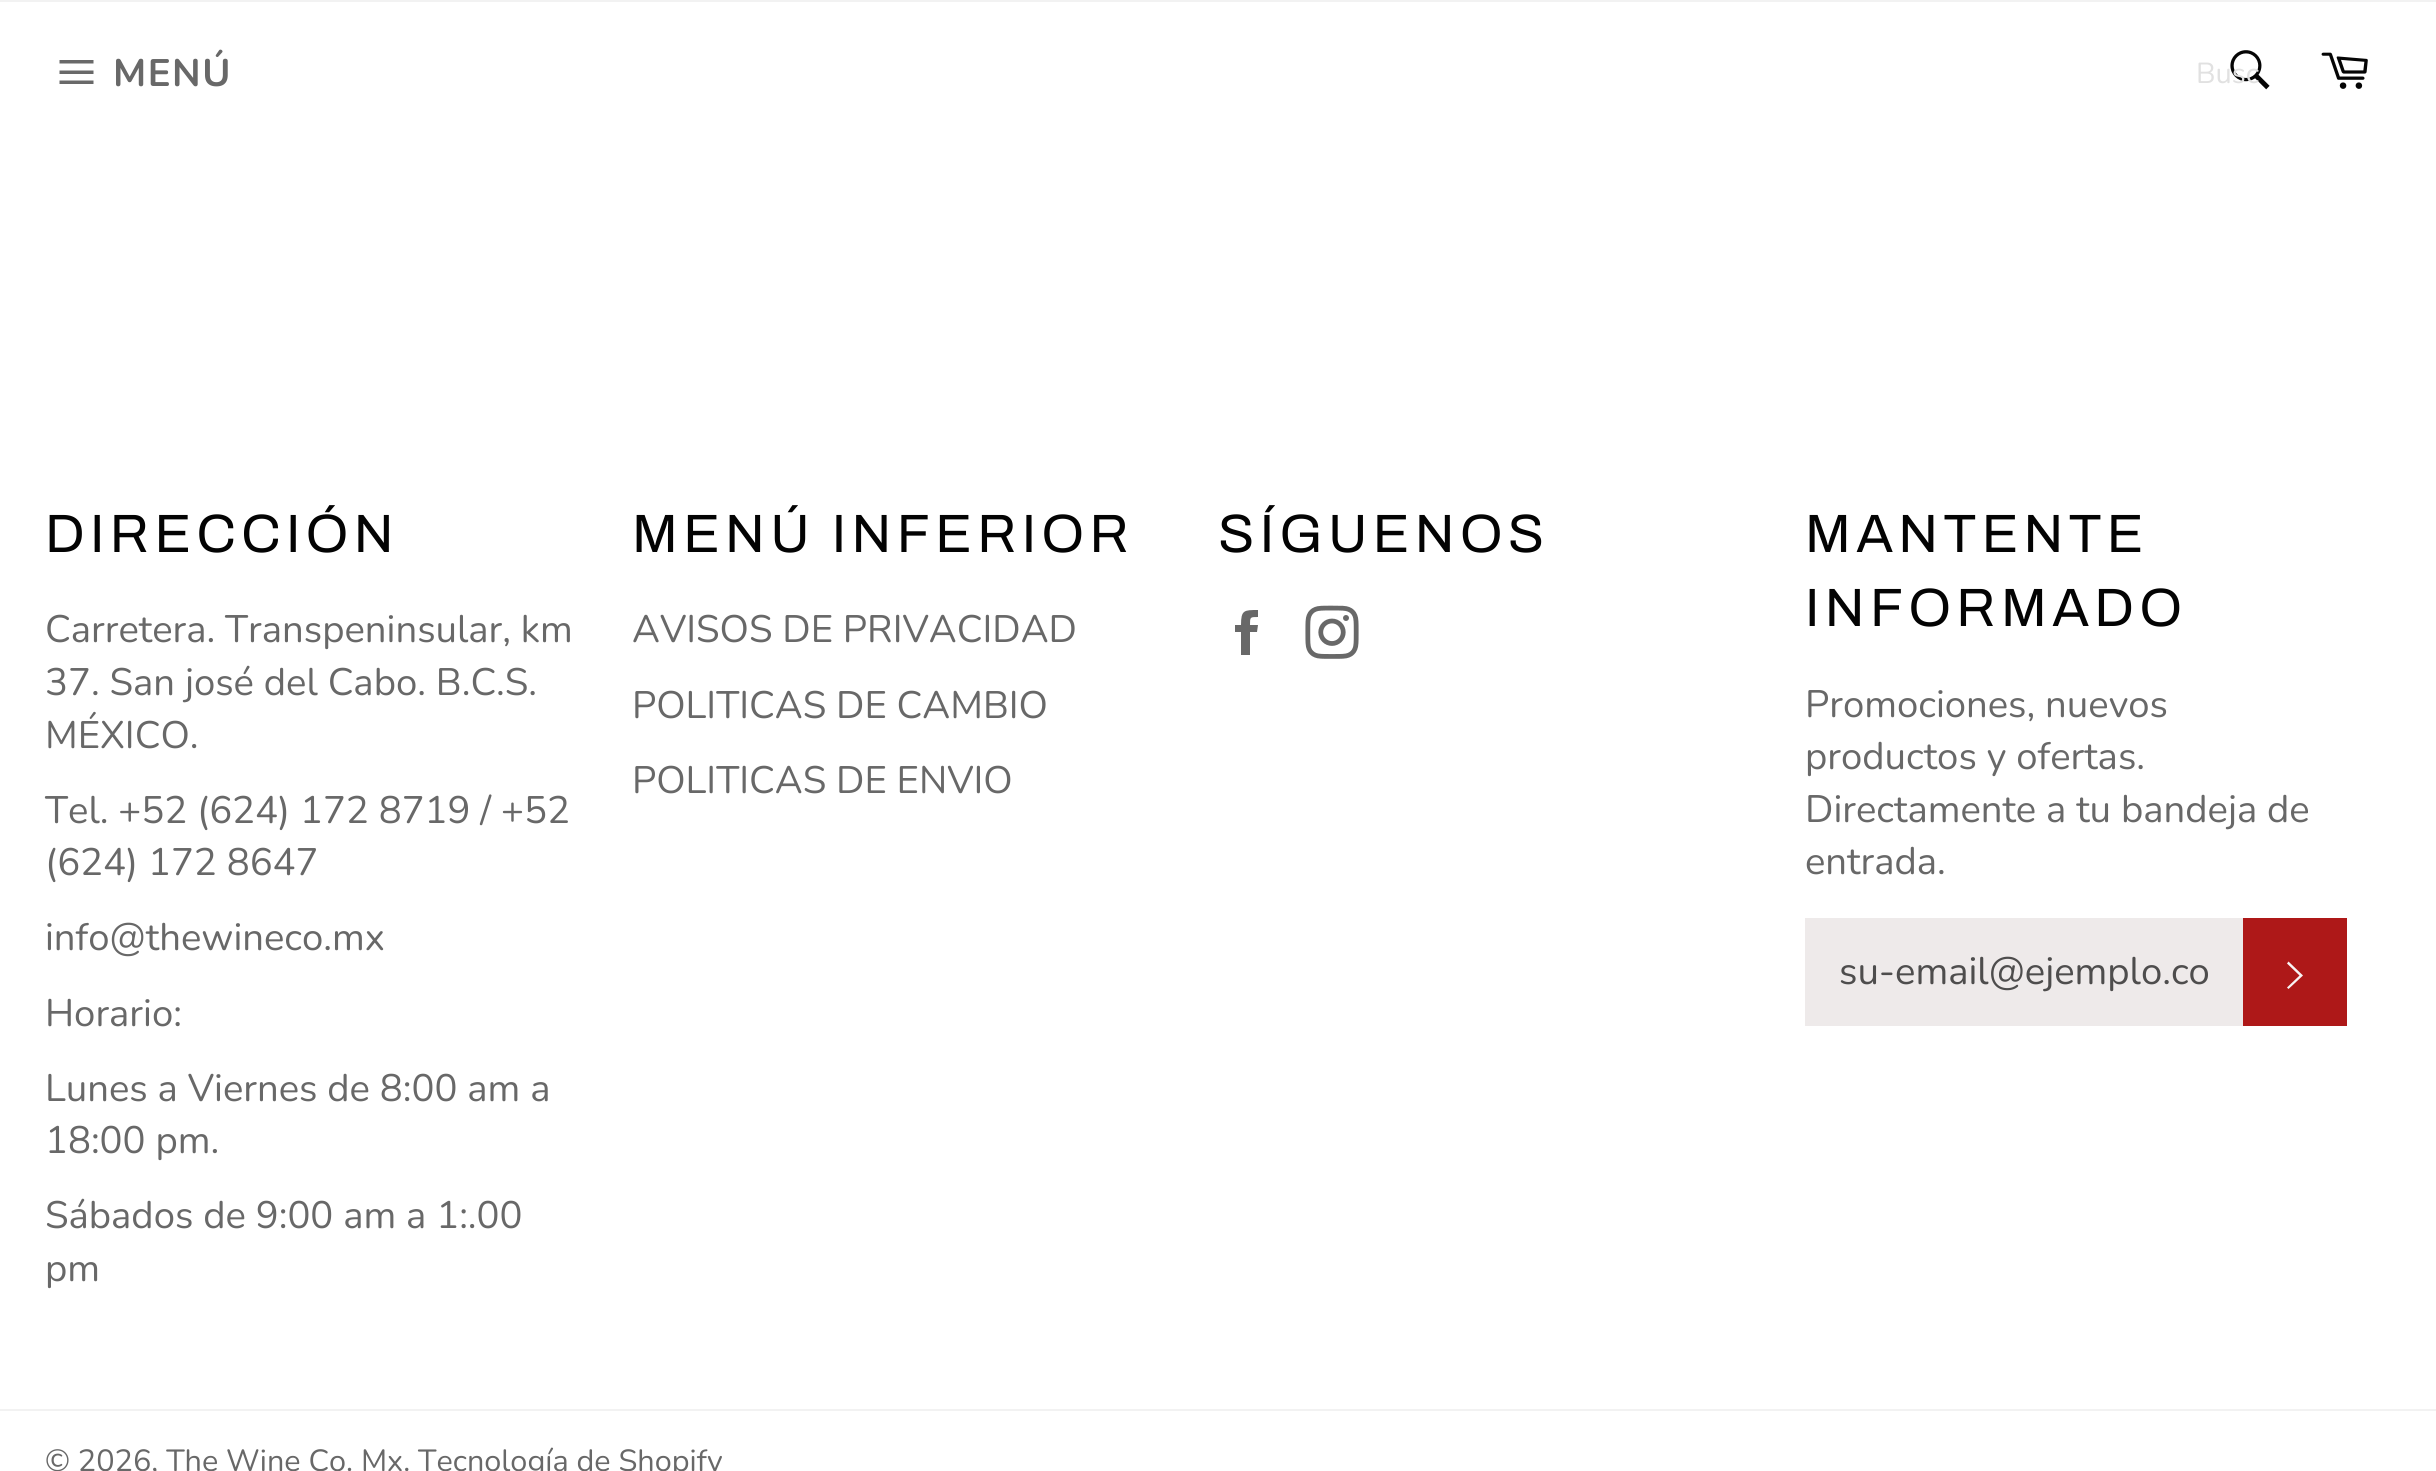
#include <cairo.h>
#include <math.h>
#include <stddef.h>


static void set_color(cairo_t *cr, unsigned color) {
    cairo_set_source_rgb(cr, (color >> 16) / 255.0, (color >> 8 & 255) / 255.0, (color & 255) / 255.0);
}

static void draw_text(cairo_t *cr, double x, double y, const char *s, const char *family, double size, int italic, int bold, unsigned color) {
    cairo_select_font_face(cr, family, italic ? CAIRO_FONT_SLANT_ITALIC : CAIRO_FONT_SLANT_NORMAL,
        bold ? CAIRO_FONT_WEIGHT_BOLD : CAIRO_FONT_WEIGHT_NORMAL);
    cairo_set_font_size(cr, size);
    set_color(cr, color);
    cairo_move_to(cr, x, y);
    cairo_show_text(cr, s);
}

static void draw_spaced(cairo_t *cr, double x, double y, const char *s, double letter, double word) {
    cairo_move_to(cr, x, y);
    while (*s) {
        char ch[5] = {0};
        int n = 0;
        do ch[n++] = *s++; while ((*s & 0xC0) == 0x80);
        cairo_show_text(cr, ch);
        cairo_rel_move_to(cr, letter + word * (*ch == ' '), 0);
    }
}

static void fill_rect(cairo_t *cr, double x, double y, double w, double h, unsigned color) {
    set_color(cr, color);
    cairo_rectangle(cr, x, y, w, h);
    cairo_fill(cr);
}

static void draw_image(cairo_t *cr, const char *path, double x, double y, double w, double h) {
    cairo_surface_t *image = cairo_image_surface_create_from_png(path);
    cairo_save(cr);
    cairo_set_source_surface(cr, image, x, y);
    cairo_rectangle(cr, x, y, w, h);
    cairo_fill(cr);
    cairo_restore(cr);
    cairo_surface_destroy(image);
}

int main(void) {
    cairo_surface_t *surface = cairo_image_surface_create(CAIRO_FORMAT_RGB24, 2436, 1471);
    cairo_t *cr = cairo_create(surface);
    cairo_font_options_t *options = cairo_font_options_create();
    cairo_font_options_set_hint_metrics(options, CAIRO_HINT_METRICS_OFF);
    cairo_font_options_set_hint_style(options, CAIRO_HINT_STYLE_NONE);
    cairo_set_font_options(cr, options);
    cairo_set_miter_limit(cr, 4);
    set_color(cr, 0xFFFFFF);
    cairo_paint(cr);
    fill_rect(cr, 0, 0, 2436, 2, 0xF2F2F2);
    set_color(cr, 0x696969);
    cairo_new_path(cr);
    cairo_move_to(cr, 59.5, 70.5);
    cairo_line_to(cr, 93.5, 70.5);
    cairo_line_to(cr, 93.5, 74);
    cairo_line_to(cr, 59.5, 74);
    cairo_close_path(cr);
    cairo_move_to(cr, 59.5, 60);
    cairo_line_to(cr, 93.5, 60);
    cairo_line_to(cr, 93.5, 63.5);
    cairo_line_to(cr, 59.5, 63.5);
    cairo_close_path(cr);
    cairo_move_to(cr, 59.5, 80.5);
    cairo_line_to(cr, 93.5, 80.5);
    cairo_line_to(cr, 93.5, 84);
    cairo_line_to(cr, 59.5, 84);
    cairo_close_path(cr);
    cairo_fill(cr);
    cairo_select_font_face(cr, "Nunito", CAIRO_FONT_SLANT_NORMAL, CAIRO_FONT_WEIGHT_BOLD);
    cairo_set_font_size(cr, 38.25);
    set_color(cr, 0x686868);
    draw_spaced(cr, 113, 86, "MENÚ", 1.5, 0);
    draw_image(cr, "assets/img1.png", 2230, 50, 40, 40);
    draw_text(cr, 2196, 83, "Busc", "Nunito", 29, 0, 0, 0xE1E1E1);
    draw_image(cr, "assets/img2.png", 2321, 52, 47, 37);
    cairo_select_font_face(cr, "Archivo", CAIRO_FONT_SLANT_NORMAL, CAIRO_FONT_WEIGHT_NORMAL);
    cairo_set_font_size(cr, 54);
    set_color(cr, 0x030303);
    draw_spaced(cr, 45, 552, "DIRECCIÓN", 5.4, 0);
    draw_text(cr, 45, 642, "Carretera. Transpeninsular, km", "Nunito", 38.25, 0, 0, 0x686868);
    draw_text(cr, 45, 695, "37. San josé del Cabo. B.C.S.", "Nunito", 38.25, 0, 0, 0x686868);
    draw_text(cr, 45, 748, "MÉXICO.", "Nunito", 38.25, 0, 0, 0x686868);
    draw_text(cr, 45, 823, "Tel. +52 (624) 172 8719 / +52", "Nunito", 38.25, 0, 0, 0x686868);
    draw_text(cr, 45, 875, "(624) 172 8647", "Nunito", 38.25, 0, 0, 0x686868);
    draw_text(cr, 45, 950, "info@thewineco.mx", "Nunito", 38.25, 0, 0, 0x686868);
    draw_text(cr, 45, 1026, "Horario:", "Nunito", 38.25, 0, 0, 0x686868);
    draw_text(cr, 45, 1101, "Lunes a Viernes de 8:00 am a", "Nunito", 38.25, 0, 0, 0x686868);
    draw_text(cr, 45, 1153, "18:00 pm.", "Nunito", 38.25, 0, 0, 0x686868);
    draw_text(cr, 45, 1228, "Sábados de 9:00 am a 1:.00", "Nunito", 38.25, 0, 0, 0x686868);
    draw_text(cr, 45, 1281, "pm", "Nunito", 38.25, 0, 0, 0x686868);
    cairo_select_font_face(cr, "Archivo", CAIRO_FONT_SLANT_NORMAL, CAIRO_FONT_WEIGHT_NORMAL);
    cairo_set_font_size(cr, 54);
    set_color(cr, 0x030303);
    draw_spaced(cr, 632, 552, "MENÚ INFERIOR", 5.4, 0);
    draw_text(cr, 632, 642, "AVISOS DE PRIVACIDAD", "Nunito", 38.25, 0, 0, 0x686868);
    draw_text(cr, 632, 718, "POLITICAS DE CAMBIO", "Nunito", 38.25, 0, 0, 0x686868);
    draw_text(cr, 632, 793, "POLITICAS DE ENVIO", "Nunito", 38.25, 0, 0, 0x686868);
    cairo_select_font_face(cr, "Archivo", CAIRO_FONT_SLANT_NORMAL, CAIRO_FONT_WEIGHT_NORMAL);
    cairo_set_font_size(cr, 54);
    set_color(cr, 0x030303);
    draw_spaced(cr, 1218, 552, "SÍGUENOS", 5.4, 0);
    set_color(cr, 0x686868);
    cairo_new_path(cr);
    cairo_move_to(cr, 1250, 625);
    cairo_curve_to(cr, 1250, 617, 1250, 617, 1258, 617);
    cairo_line_to(cr, 1258, 610);
    cairo_curve_to(cr, 1244, 610, 1241, 610, 1241, 625);
    cairo_line_to(cr, 1235, 625);
    cairo_line_to(cr, 1235, 632);
    cairo_line_to(cr, 1241, 632);
    cairo_line_to(cr, 1241, 655);
    cairo_line_to(cr, 1250, 655);
    cairo_line_to(cr, 1250, 632);
    cairo_line_to(cr, 1257, 632);
    cairo_line_to(cr, 1258, 625);
    cairo_close_path(cr);
    cairo_fill(cr);
    draw_image(cr, "assets/img3.png", 1305, 605, 54, 54);
    set_color(cr, 0x030303);
    draw_spaced(cr, 1805, 552, "MANTENTE", 5.4, 0);
    draw_spaced(cr, 1805, 626, "INFORMADO", 5.4, 0);
    draw_text(cr, 1805, 717, "Promociones, nuevos", "Nunito", 38.25, 0, 0, 0x686868);
    draw_text(cr, 1805, 769, "productos y ofertas.", "Nunito", 38.25, 0, 0, 0x686868);
    draw_text(cr, 1805, 822, "Directamente a tu bandeja de", "Nunito", 38.25, 0, 0, 0x686868);
    draw_text(cr, 1805, 874, "entrada.", "Nunito", 38.25, 0, 0, 0x686868);
    fill_rect(cr, 1805, 918, 438, 108, 0xEEEAEA);
    draw_text(cr, 1839, 984, "su-email@ejemplo.co", "Nunito", 38.25, 0, 0, 0x4E4D4D);
    fill_rect(cr, 2243, 918, 104, 108, 0xAE1818);
    set_color(cr, 0xF8F4F4);
    cairo_new_path(cr);
    cairo_move_to(cr, 2287, 963.5);
    cairo_line_to(cr, 2288.5, 961.5);
    cairo_line_to(cr, 2303, 975.5);
    cairo_line_to(cr, 2288.5, 989);
    cairo_line_to(cr, 2287, 987.5);
    cairo_line_to(cr, 2299.5, 975.5);
    cairo_close_path(cr);
    cairo_fill(cr);
    fill_rect(cr, 0, 1409, 2436, 2, 0xF2F2F2);
    draw_text(cr, 45, 1471, "© 2026, The Wine Co. Mx. Tecnología de Shopify", "Nunito", 30.6, 0, 0, 0x686868);
    cairo_surface_write_to_png(surface, "output.png");
    cairo_font_options_destroy(options);
    cairo_destroy(cr);
    cairo_surface_destroy(surface);
    return 0;
}
